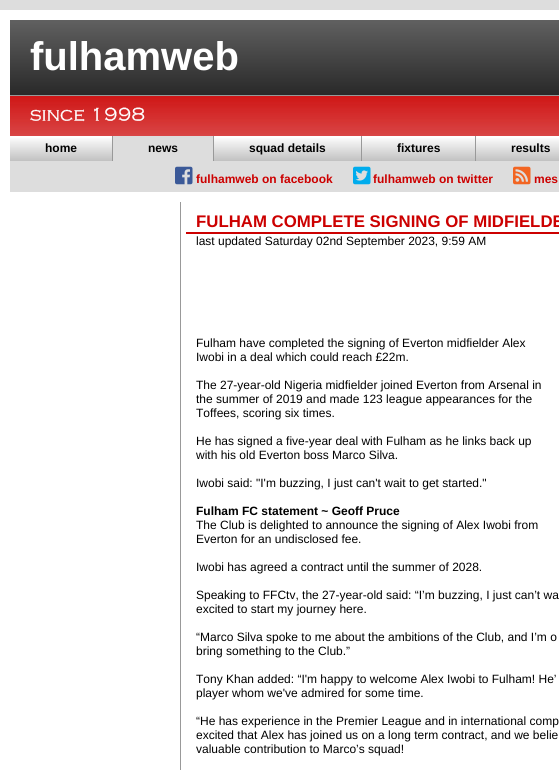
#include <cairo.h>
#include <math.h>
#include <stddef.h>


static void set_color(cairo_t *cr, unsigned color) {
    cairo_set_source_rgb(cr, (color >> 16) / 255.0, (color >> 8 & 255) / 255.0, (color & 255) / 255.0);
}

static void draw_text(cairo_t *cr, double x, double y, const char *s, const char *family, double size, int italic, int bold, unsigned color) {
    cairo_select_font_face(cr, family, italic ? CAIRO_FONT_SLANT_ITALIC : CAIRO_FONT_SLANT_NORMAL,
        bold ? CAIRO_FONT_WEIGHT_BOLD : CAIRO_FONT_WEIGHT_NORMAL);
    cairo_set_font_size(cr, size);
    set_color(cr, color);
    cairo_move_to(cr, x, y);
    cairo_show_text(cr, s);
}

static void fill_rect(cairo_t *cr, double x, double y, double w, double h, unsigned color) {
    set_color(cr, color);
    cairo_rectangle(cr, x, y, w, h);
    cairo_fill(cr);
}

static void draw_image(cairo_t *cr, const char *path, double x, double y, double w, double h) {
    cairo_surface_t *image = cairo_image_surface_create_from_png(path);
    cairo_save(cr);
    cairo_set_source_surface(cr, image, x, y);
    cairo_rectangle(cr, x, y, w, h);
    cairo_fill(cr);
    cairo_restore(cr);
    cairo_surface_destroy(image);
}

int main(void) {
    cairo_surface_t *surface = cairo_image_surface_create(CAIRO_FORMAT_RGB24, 559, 770);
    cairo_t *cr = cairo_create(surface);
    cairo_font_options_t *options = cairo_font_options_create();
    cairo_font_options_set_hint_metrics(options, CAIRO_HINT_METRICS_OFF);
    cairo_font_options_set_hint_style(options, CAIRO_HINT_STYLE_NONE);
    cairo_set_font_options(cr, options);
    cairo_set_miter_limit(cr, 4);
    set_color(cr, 0xDDDDDD);
    cairo_paint(cr);
    fill_rect(cr, 0, 10, 559, 760, 0xFFFFFF);
    draw_image(cr, "assets/img1.png", 10, 20, 549, 75);
    draw_text(cr, 30, 70, "fulhamweb", "Liberation Sans", 40, 0, 1, 0xFFFFFF);
    draw_image(cr, "assets/img2.png", 10, 96, 549, 40);
    fill_rect(cr, 10, 95, 549, 1, 0x999999);
    draw_image(cr, "assets/img3.png", 30, 107, 115, 15);
    draw_image(cr, "assets/img4.png", 10, 138, 549, 23);
    fill_rect(cr, 112, 136, 1, 25, 0x999999);
    draw_text(cr, 45, 152, "home", "Liberation Sans", 12, 0, 1, 0x000000);
    fill_rect(cr, 113, 136, 100, 25, 0xDDDDDD);
    fill_rect(cr, 213, 136, 1, 25, 0x999999);
    draw_text(cr, 148, 152, "news", "Liberation Sans", 12, 0, 1, 0x000000);
    fill_rect(cr, 361, 136, 1, 25, 0x999999);
    draw_text(cr, 249, 152, "squad details", "Liberation Sans", 12, 0, 1, 0x000000);
    fill_rect(cr, 475, 136, 1, 25, 0x999999);
    draw_text(cr, 397, 152, "fixtures", "Liberation Sans", 12, 0, 1, 0x000000);
    draw_text(cr, 511, 152, "results", "Liberation Sans", 12, 0, 1, 0x000000);
    fill_rect(cr, 10, 161, 549, 31, 0xDDDDDD);
    draw_image(cr, "assets/img5.png", 175, 166, 18, 19);
    draw_text(cr, 196, 183, "fulhamweb on facebook", "Liberation Sans", 12, 0, 1, 0xCC0000);
    draw_image(cr, "assets/img6.png", 353, 166, 18, 19);
    draw_text(cr, 373, 183, "fulhamweb on twitter", "Liberation Sans", 12, 0, 1, 0xCC0000);
    draw_image(cr, "assets/img7.png", 513, 166, 18, 19);
    draw_text(cr, 534, 183, "mes", "Liberation Sans", 12, 0, 1, 0xCC0000);
    fill_rect(cr, 180, 202, 1, 568, 0x999999);
    fill_rect(cr, 186, 232, 373, 2, 0xCC0000);
    draw_text(cr, 196, 227, "FULHAM COMPLETE SIGNING OF MIDFIELDE", "Liberation Sans", 16.8, 0, 1, 0xCC0000);
    draw_text(cr, 196, 245, "last updated Saturday 02nd September 2023, 9:59 AM", "Liberation Sans", 12, 0, 0, 0x000000);
    draw_text(cr, 196, 347, "Fulham have completed the signing of Everton midfielder Alex", "Liberation Sans", 12, 0, 0, 0x000000);
    draw_text(cr, 196, 361, "Iwobi in a deal which could reach £22m.", "Liberation Sans", 12, 0, 0, 0x000000);
    draw_text(cr, 196, 389, "The 27-year-old Nigeria midfielder joined Everton from Arsenal in", "Liberation Sans", 12, 0, 0, 0x000000);
    draw_text(cr, 196, 403, "the summer of 2019 and made 123 league appearances for the", "Liberation Sans", 12, 0, 0, 0x000000);
    draw_text(cr, 196, 417, "Toffees, scoring six times.", "Liberation Sans", 12, 0, 0, 0x000000);
    draw_text(cr, 196, 445, "He has signed a five-year deal with Fulham as he links back up", "Liberation Sans", 12, 0, 0, 0x000000);
    draw_text(cr, 196, 459, "with his old Everton boss Marco Silva.", "Liberation Sans", 12, 0, 0, 0x000000);
    draw_text(cr, 196, 487, "Iwobi said: \"I'm buzzing, I just can't wait to get started.\"", "Liberation Sans", 12, 0, 0, 0x000000);
    draw_text(cr, 196, 515, "Fulham FC statement ~ Geoff Pruce", "Liberation Sans", 12, 0, 1, 0x000000);
    draw_text(cr, 196, 529, "The Club is delighted to announce the signing of Alex Iwobi from", "Liberation Sans", 12, 0, 0, 0x000000);
    draw_text(cr, 196, 543, "Everton for an undisclosed fee.", "Liberation Sans", 12, 0, 0, 0x000000);
    draw_text(cr, 196, 571, "Iwobi has agreed a contract until the summer of 2028.", "Liberation Sans", 12, 0, 0, 0x000000);
    draw_text(cr, 196, 599, "Speaking to FFCtv, the 27-year-old said: “I’m buzzing, I just can’t wa", "Liberation Sans", 12, 0, 0, 0x000000);
    draw_text(cr, 196, 613, "excited to start my journey here.", "Liberation Sans", 12, 0, 0, 0x000000);
    draw_text(cr, 196, 641, "“Marco Silva spoke to me about the ambitions of the Club, and I’m o", "Liberation Sans", 12, 0, 0, 0x000000);
    draw_text(cr, 196, 655, "bring something to the Club.”", "Liberation Sans", 12, 0, 0, 0x000000);
    draw_text(cr, 196, 683, "Tony Khan added: “I'm happy to welcome Alex Iwobi to Fulham! He’", "Liberation Sans", 12, 0, 0, 0x000000);
    draw_text(cr, 196, 697, "player whom we've admired for some time.", "Liberation Sans", 12, 0, 0, 0x000000);
    draw_text(cr, 196, 725, "“He has experience in the Premier League and in international comp", "Liberation Sans", 12, 0, 0, 0x000000);
    draw_text(cr, 196, 739, "excited that Alex has joined us on a long term contract, and we belie", "Liberation Sans", 12, 0, 0, 0x000000);
    draw_text(cr, 196, 753, "valuable contribution to Marco’s squad!", "Liberation Sans", 12, 0, 0, 0x000000);
    cairo_surface_write_to_png(surface, "output.png");
    cairo_font_options_destroy(options);
    cairo_destroy(cr);
    cairo_surface_destroy(surface);
    return 0;
}
